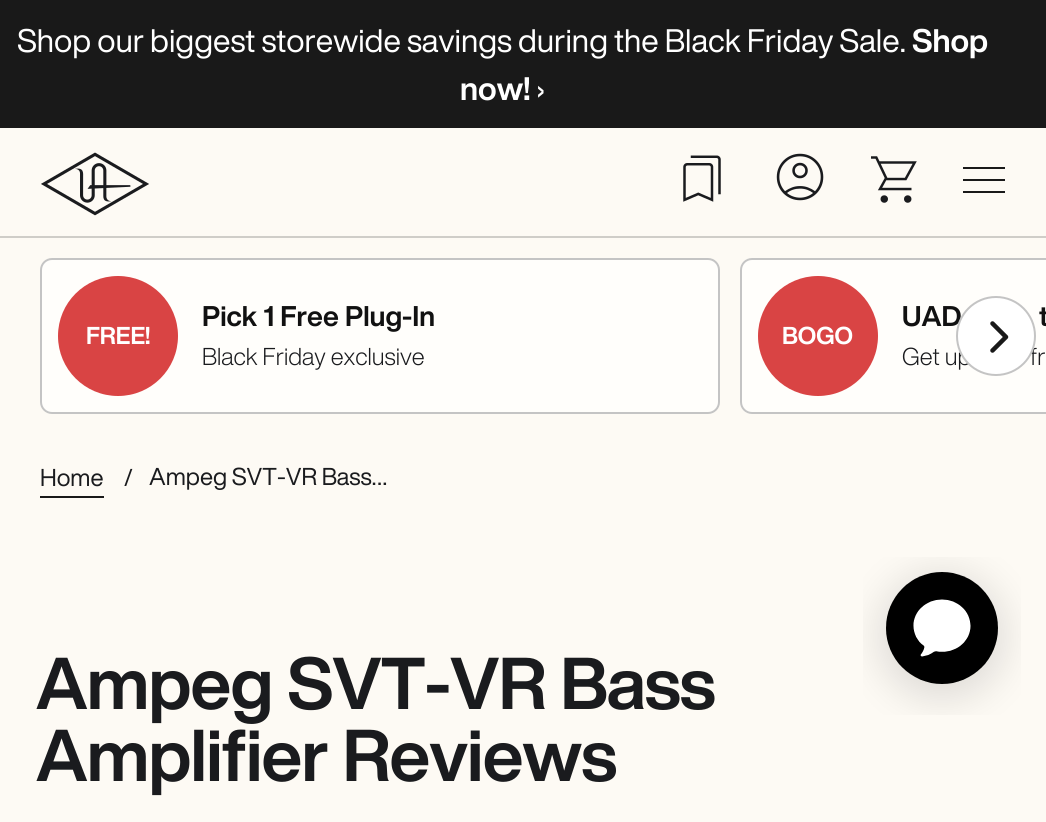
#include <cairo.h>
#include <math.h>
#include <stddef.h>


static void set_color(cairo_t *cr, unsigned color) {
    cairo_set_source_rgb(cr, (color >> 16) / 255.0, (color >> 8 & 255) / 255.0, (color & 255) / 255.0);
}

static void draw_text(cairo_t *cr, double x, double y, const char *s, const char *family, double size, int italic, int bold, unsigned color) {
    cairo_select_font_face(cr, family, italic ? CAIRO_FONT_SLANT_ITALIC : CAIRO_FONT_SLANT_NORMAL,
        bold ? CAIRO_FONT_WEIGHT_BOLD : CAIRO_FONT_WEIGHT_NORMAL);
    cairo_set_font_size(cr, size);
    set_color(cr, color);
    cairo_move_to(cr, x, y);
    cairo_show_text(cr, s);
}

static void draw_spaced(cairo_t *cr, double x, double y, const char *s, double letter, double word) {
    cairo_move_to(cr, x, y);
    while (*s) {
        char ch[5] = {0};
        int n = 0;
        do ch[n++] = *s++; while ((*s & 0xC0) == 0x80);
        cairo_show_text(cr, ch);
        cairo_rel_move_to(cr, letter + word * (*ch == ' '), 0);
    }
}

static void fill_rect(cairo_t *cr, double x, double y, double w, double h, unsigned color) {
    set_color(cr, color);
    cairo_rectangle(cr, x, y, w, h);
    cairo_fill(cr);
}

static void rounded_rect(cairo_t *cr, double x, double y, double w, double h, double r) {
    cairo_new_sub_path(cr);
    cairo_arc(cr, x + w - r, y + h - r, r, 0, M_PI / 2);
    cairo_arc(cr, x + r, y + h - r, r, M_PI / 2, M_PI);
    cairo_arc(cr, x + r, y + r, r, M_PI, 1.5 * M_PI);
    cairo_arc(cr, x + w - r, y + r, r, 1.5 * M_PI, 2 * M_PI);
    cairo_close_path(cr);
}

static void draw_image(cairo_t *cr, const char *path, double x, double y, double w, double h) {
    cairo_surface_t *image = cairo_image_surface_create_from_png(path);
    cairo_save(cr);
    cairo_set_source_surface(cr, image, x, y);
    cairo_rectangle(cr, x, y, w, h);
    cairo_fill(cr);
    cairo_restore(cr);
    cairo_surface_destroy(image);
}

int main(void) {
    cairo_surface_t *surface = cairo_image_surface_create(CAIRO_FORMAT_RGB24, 1046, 822);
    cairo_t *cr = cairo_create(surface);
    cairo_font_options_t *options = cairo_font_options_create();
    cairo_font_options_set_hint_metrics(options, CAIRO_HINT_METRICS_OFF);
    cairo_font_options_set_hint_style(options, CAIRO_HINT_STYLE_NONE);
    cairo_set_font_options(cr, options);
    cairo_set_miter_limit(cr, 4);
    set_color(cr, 0xFDFAF4);
    cairo_paint(cr);
    fill_rect(cr, 0, 0, 1046, 128, 0x191919);
    draw_text(cr, 17, 52, "Shop our biggest storewide savings during the Black Friday Sale.", "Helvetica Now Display", 32, 0, 0, 0xFFFFFF);
    draw_text(cr, 912, 52, "Shop", "Helvetica Now Display", 32, 0, 1, 0xFFFFFF);
    draw_text(cr, 460, 100, "now!", "Helvetica Now Display", 32, 0, 1, 0xFFFFFF);
    draw_text(cr, 536, 100, "›", "Helvetica Now Display", 32, 0, 0, 0xFFFFFF);
    draw_image(cr, "assets/img1.png", 41, 152, 108, 64);
    draw_image(cr, "assets/img2.png", 683, 155, 38, 47);
    draw_image(cr, "assets/img3.png", 776, 153, 48, 48);
    draw_image(cr, "assets/img4.png", 871, 156, 46, 47);
    set_color(cr, 0x191919);
    cairo_new_path(cr);
    cairo_move_to(cr, 963, 193);
    cairo_line_to(cr, 963, 191);
    cairo_line_to(cr, 1005, 191);
    cairo_line_to(cr, 1005, 193);
    cairo_close_path(cr);
    cairo_move_to(cr, 963, 181);
    cairo_line_to(cr, 963, 179);
    cairo_line_to(cr, 1005, 179);
    cairo_line_to(cr, 1005, 181);
    cairo_close_path(cr);
    cairo_move_to(cr, 963, 169);
    cairo_line_to(cr, 963, 167);
    cairo_line_to(cr, 1005, 167);
    cairo_line_to(cr, 1005, 169);
    cairo_close_path(cr);
    cairo_fill(cr);
    fill_rect(cr, 0, 236, 1046, 2, 0xCFCDC8);
    set_color(cr, 0xFFFEFB);
    cairo_new_path(cr);
    cairo_move_to(cr, 752, 258);
    cairo_line_to(cr, 1046, 258);
    cairo_line_to(cr, 1046, 414);
    cairo_line_to(cr, 752, 414);
    cairo_curve_to(cr, 745.5, 414, 740, 408.5, 740, 402);
    cairo_line_to(cr, 740, 270);
    cairo_curve_to(cr, 740, 263.5, 745.5, 258, 752, 258);
    cairo_close_path(cr);
    cairo_fill(cr);
    rounded_rect(cr, 741, 259, 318, 154, 11);
    set_color(cr, 0xC4C4C4);
    cairo_stroke(cr);
    draw_text(cr, 902, 326, "UAD", "Helvetica Now Display", 28, 0, 1, 0x111111);
    draw_text(cr, 902, 365, "Get up", "Helvetica Now Display Light", 24, 0, 0, 0x1A1B1E);
    draw_text(cr, 1030, 365, "fr", "Helvetica Now Display Light", 24, 0, 0, 0x1A1B1E);
    set_color(cr, 0xFFFFFF);
    cairo_new_path(cr);
    cairo_arc(cr, 996, 336, 39, 0, 2 * M_PI);
    cairo_fill_preserve(cr);
    set_color(cr, 0xC4C4C4);
    cairo_stroke(cr);
    cairo_new_path(cr);
    cairo_move_to(cr, 992.5, 323.5);
    cairo_line_to(cr, 1006, 337);
    cairo_line_to(cr, 992.5, 350.5);
    set_color(cr, 0x191919);
    cairo_set_line_width(cr, 4.5);
    cairo_set_line_cap(cr, CAIRO_LINE_CAP_ROUND);
    cairo_set_line_join(cr, CAIRO_LINE_JOIN_ROUND);
    cairo_stroke(cr);
    set_color(cr, 0xFFFEFB);
    rounded_rect(cr, 41, 259, 678, 154, 11);
    cairo_fill_preserve(cr);
    set_color(cr, 0xC4C4C4);
    cairo_set_line_width(cr, 2);
    cairo_set_line_cap(cr, CAIRO_LINE_CAP_BUTT);
    cairo_set_line_join(cr, CAIRO_LINE_JOIN_MITER);
    cairo_stroke(cr);
    set_color(cr, 0xD94444);
    cairo_arc(cr, 118, 336, 60, 0, 2 * M_PI);
    cairo_fill(cr);
    draw_text(cr, 86, 344, "FREE!", "Helvetica Now Display", 24, 0, 1, 0xFFFFFF);
    draw_text(cr, 202, 326, "Pick 1 Free Plug-In", "Helvetica Now Display", 28, 0, 1, 0x111111);
    draw_text(cr, 202, 365, "Black Friday exclusive", "Helvetica Now Display Light", 24, 0, 0, 0x1A1B1E);
    set_color(cr, 0xD94444);
    cairo_new_path(cr);
    cairo_arc(cr, 818, 336, 60, 0, 2 * M_PI);
    cairo_fill(cr);
    draw_text(cr, 782, 344, "BOGO", "Helvetica Now Display", 24, 0, 1, 0xFFFFFF);
    draw_text(cr, 1039, 326, "t", "Helvetica Now Display", 28, 0, 1, 0x111111);
    draw_text(cr, 40, 486, "Home", "Helvetica Now Display", 24, 0, 0, 0x1A1B1E);
    fill_rect(cr, 40, 496, 64, 2, 0x191919);
    draw_text(cr, 124, 486, "/", "Helvetica Now Display", 24, 0, 0, 0x1A1B1E);
    draw_text(cr, 149, 485, "Ampeg SVT-VR Bass…", "Helvetica Now Display", 24, 0, 0, 0x1A1B1E);
    cairo_select_font_face(cr, "Helvetica Now Display", CAIRO_FONT_SLANT_NORMAL, CAIRO_FONT_WEIGHT_BOLD);
    cairo_set_font_size(cr, 72);
    draw_spaced(cr, 36, 709, "Ampeg SVT-VR Bass", -0.9, 0);
    draw_spaced(cr, 36, 781, "Amplifier Reviews", -0.9, 0);
    draw_image(cr, "assets/img5.png", 863, 557, 158, 158);
    cairo_surface_write_to_png(surface, "output.png");
    cairo_font_options_destroy(options);
    cairo_destroy(cr);
    cairo_surface_destroy(surface);
    return 0;
}
